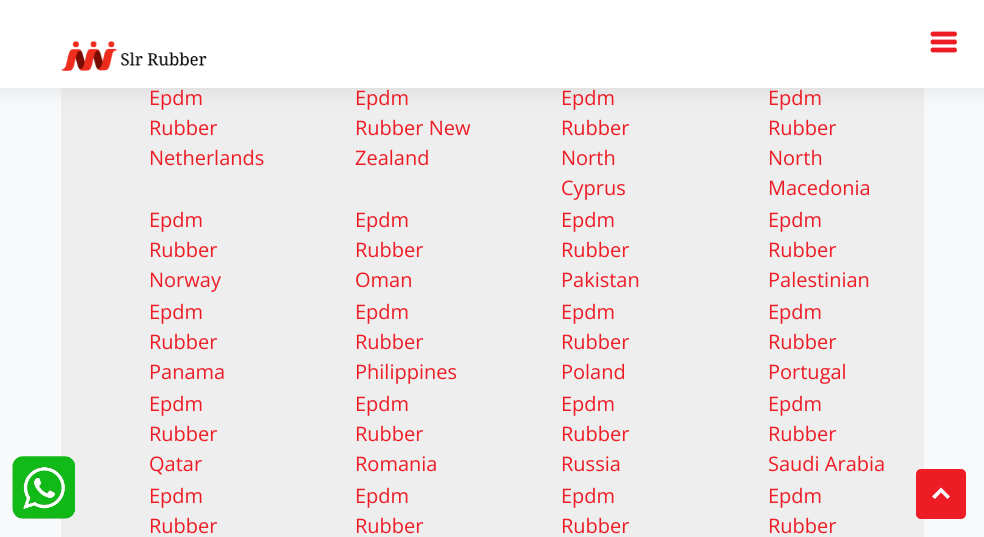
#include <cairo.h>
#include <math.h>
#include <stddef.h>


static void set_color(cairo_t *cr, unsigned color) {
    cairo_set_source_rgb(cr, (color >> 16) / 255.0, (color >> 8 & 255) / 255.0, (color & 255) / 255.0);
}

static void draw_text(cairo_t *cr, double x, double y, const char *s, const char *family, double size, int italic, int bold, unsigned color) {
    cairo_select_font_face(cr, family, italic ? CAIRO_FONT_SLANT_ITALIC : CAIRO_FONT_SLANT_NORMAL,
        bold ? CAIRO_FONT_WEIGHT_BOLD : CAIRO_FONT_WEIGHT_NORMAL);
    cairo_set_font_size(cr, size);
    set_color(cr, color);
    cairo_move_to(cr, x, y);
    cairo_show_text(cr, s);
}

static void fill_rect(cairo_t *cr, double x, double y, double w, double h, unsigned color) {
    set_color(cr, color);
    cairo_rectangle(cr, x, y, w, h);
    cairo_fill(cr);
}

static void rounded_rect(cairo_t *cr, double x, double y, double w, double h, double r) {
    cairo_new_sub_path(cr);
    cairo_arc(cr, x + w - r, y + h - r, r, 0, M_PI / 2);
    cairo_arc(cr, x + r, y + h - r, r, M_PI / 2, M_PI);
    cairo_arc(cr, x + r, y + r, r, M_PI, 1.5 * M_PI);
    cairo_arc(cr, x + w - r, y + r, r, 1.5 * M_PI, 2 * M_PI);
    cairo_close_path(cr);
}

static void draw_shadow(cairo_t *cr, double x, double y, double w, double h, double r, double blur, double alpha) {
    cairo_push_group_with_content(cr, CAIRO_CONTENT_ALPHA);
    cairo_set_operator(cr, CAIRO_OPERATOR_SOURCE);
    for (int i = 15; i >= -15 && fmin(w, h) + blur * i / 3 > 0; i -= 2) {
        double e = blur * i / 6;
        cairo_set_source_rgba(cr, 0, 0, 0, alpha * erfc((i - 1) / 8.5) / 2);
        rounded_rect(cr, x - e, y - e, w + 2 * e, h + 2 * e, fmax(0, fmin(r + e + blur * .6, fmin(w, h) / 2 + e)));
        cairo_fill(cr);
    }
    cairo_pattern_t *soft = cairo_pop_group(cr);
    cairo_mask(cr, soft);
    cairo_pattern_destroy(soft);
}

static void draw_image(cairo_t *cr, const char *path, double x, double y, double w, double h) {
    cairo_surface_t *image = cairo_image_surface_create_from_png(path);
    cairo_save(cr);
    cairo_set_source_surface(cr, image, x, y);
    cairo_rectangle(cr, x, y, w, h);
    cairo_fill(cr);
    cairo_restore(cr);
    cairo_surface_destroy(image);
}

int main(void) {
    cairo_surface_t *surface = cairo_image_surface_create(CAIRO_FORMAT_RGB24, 984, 537);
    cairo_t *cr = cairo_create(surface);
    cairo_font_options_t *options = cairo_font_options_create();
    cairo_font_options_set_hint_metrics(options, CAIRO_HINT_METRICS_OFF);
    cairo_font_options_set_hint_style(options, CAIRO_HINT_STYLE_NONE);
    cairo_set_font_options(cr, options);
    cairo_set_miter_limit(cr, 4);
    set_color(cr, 0xF8F9FA);
    cairo_paint(cr);
    fill_rect(cr, 61, 88, 863, 449, 0xEEEEEE);
    set_color(cr, 0x000000);
    draw_shadow(cr, 0, 0, 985, 88, 0, 12.5, 0.1);
    fill_rect(cr, 0, 0, 984, 88, 0xFFFFFF);
    draw_image(cr, "assets/img1.png", 61, 41, 146, 30);
    draw_image(cr, "assets/img2.png", 930, 31, 27, 22);
    draw_image(cr, "assets/img3.png", 12, 456, 63, 63);
    draw_text(cr, 149, 105, "Epdm", "Open Sans", 20, 0, 0, 0xEE1C25);
    draw_text(cr, 149, 135, "Rubber", "Open Sans", 20, 0, 0, 0xEE1C25);
    draw_text(cr, 149, 165, "Netherlands", "Open Sans", 20, 0, 0, 0xEE1C25);
    draw_text(cr, 355, 105, "Epdm", "Open Sans", 20, 0, 0, 0xEE1C25);
    draw_text(cr, 355, 135, "Rubber New", "Open Sans", 20, 0, 0, 0xEE1C25);
    draw_text(cr, 355, 165, "Zealand", "Open Sans", 20, 0, 0, 0xEE1C25);
    draw_text(cr, 561, 105, "Epdm", "Open Sans", 20, 0, 0, 0xEE1C25);
    draw_text(cr, 561, 135, "Rubber", "Open Sans", 20, 0, 0, 0xEE1C25);
    draw_text(cr, 561, 165, "North", "Open Sans", 20, 0, 0, 0xEE1C25);
    draw_text(cr, 561, 195, "Cyprus", "Open Sans", 20, 0, 0, 0xEE1C25);
    draw_text(cr, 768, 105, "Epdm", "Open Sans", 20, 0, 0, 0xEE1C25);
    draw_text(cr, 768, 135, "Rubber", "Open Sans", 20, 0, 0, 0xEE1C25);
    draw_text(cr, 768, 165, "North", "Open Sans", 20, 0, 0, 0xEE1C25);
    draw_text(cr, 768, 195, "Macedonia", "Open Sans", 20, 0, 0, 0xEE1C25);
    draw_text(cr, 149, 227, "Epdm", "Open Sans", 20, 0, 0, 0xEE1C25);
    draw_text(cr, 149, 257, "Rubber", "Open Sans", 20, 0, 0, 0xEE1C25);
    draw_text(cr, 149, 287, "Norway", "Open Sans", 20, 0, 0, 0xEE1C25);
    draw_text(cr, 355, 227, "Epdm", "Open Sans", 20, 0, 0, 0xEE1C25);
    draw_text(cr, 355, 257, "Rubber", "Open Sans", 20, 0, 0, 0xEE1C25);
    draw_text(cr, 355, 287, "Oman", "Open Sans", 20, 0, 0, 0xEE1C25);
    draw_text(cr, 561, 227, "Epdm", "Open Sans", 20, 0, 0, 0xEE1C25);
    draw_text(cr, 561, 257, "Rubber", "Open Sans", 20, 0, 0, 0xEE1C25);
    draw_text(cr, 561, 287, "Pakistan", "Open Sans", 20, 0, 0, 0xEE1C25);
    draw_text(cr, 768, 227, "Epdm", "Open Sans", 20, 0, 0, 0xEE1C25);
    draw_text(cr, 768, 257, "Rubber", "Open Sans", 20, 0, 0, 0xEE1C25);
    draw_text(cr, 768, 287, "Palestinian", "Open Sans", 20, 0, 0, 0xEE1C25);
    draw_text(cr, 149, 319, "Epdm", "Open Sans", 20, 0, 0, 0xEE1C25);
    draw_text(cr, 149, 349, "Rubber", "Open Sans", 20, 0, 0, 0xEE1C25);
    draw_text(cr, 149, 379, "Panama", "Open Sans", 20, 0, 0, 0xEE1C25);
    draw_text(cr, 355, 319, "Epdm", "Open Sans", 20, 0, 0, 0xEE1C25);
    draw_text(cr, 355, 349, "Rubber", "Open Sans", 20, 0, 0, 0xEE1C25);
    draw_text(cr, 355, 379, "Philippines", "Open Sans", 20, 0, 0, 0xEE1C25);
    draw_text(cr, 561, 319, "Epdm", "Open Sans", 20, 0, 0, 0xEE1C25);
    draw_text(cr, 561, 349, "Rubber", "Open Sans", 20, 0, 0, 0xEE1C25);
    draw_text(cr, 561, 379, "Poland", "Open Sans", 20, 0, 0, 0xEE1C25);
    draw_text(cr, 768, 319, "Epdm", "Open Sans", 20, 0, 0, 0xEE1C25);
    draw_text(cr, 768, 349, "Rubber", "Open Sans", 20, 0, 0, 0xEE1C25);
    draw_text(cr, 768, 379, "Portugal", "Open Sans", 20, 0, 0, 0xEE1C25);
    draw_text(cr, 149, 411, "Epdm", "Open Sans", 20, 0, 0, 0xEE1C25);
    draw_text(cr, 149, 441, "Rubber", "Open Sans", 20, 0, 0, 0xEE1C25);
    draw_text(cr, 149, 471, "Qatar", "Open Sans", 20, 0, 0, 0xEE1C25);
    draw_text(cr, 355, 411, "Epdm", "Open Sans", 20, 0, 0, 0xEE1C25);
    draw_text(cr, 355, 441, "Rubber", "Open Sans", 20, 0, 0, 0xEE1C25);
    draw_text(cr, 355, 471, "Romania", "Open Sans", 20, 0, 0, 0xEE1C25);
    draw_text(cr, 561, 411, "Epdm", "Open Sans", 20, 0, 0, 0xEE1C25);
    draw_text(cr, 561, 441, "Rubber", "Open Sans", 20, 0, 0, 0xEE1C25);
    draw_text(cr, 561, 471, "Russia", "Open Sans", 20, 0, 0, 0xEE1C25);
    draw_text(cr, 768, 411, "Epdm", "Open Sans", 20, 0, 0, 0xEE1C25);
    draw_text(cr, 768, 441, "Rubber", "Open Sans", 20, 0, 0, 0xEE1C25);
    draw_text(cr, 768, 471, "Saudi Arabia", "Open Sans", 20, 0, 0, 0xEE1C25);
    draw_text(cr, 149, 503, "Epdm", "Open Sans", 20, 0, 0, 0xEE1C25);
    draw_text(cr, 149, 533, "Rubber", "Open Sans", 20, 0, 0, 0xEE1C25);
    draw_text(cr, 355, 503, "Epdm", "Open Sans", 20, 0, 0, 0xEE1C25);
    draw_text(cr, 355, 533, "Rubber", "Open Sans", 20, 0, 0, 0xEE1C25);
    draw_text(cr, 561, 503, "Epdm", "Open Sans", 20, 0, 0, 0xEE1C25);
    draw_text(cr, 561, 533, "Rubber", "Open Sans", 20, 0, 0, 0xEE1C25);
    draw_text(cr, 768, 503, "Epdm", "Open Sans", 20, 0, 0, 0xEE1C25);
    draw_text(cr, 768, 533, "Rubber", "Open Sans", 20, 0, 0, 0xEE1C25);
    rounded_rect(cr, 916, 469, 50, 50, 5);
    cairo_fill(cr);
    set_color(cr, 0xFFFFFF);
    cairo_new_path(cr);
    cairo_move_to(cr, 935, 499);
    cairo_line_to(cr, 941, 492.5);
    cairo_line_to(cr, 947.5, 499);
    cairo_line_to(cr, 950, 496.5);
    cairo_line_to(cr, 941, 487.5);
    cairo_line_to(cr, 932, 496.5);
    cairo_close_path(cr);
    cairo_fill(cr);
    cairo_surface_write_to_png(surface, "output.png");
    cairo_font_options_destroy(options);
    cairo_destroy(cr);
    cairo_surface_destroy(surface);
    return 0;
}
